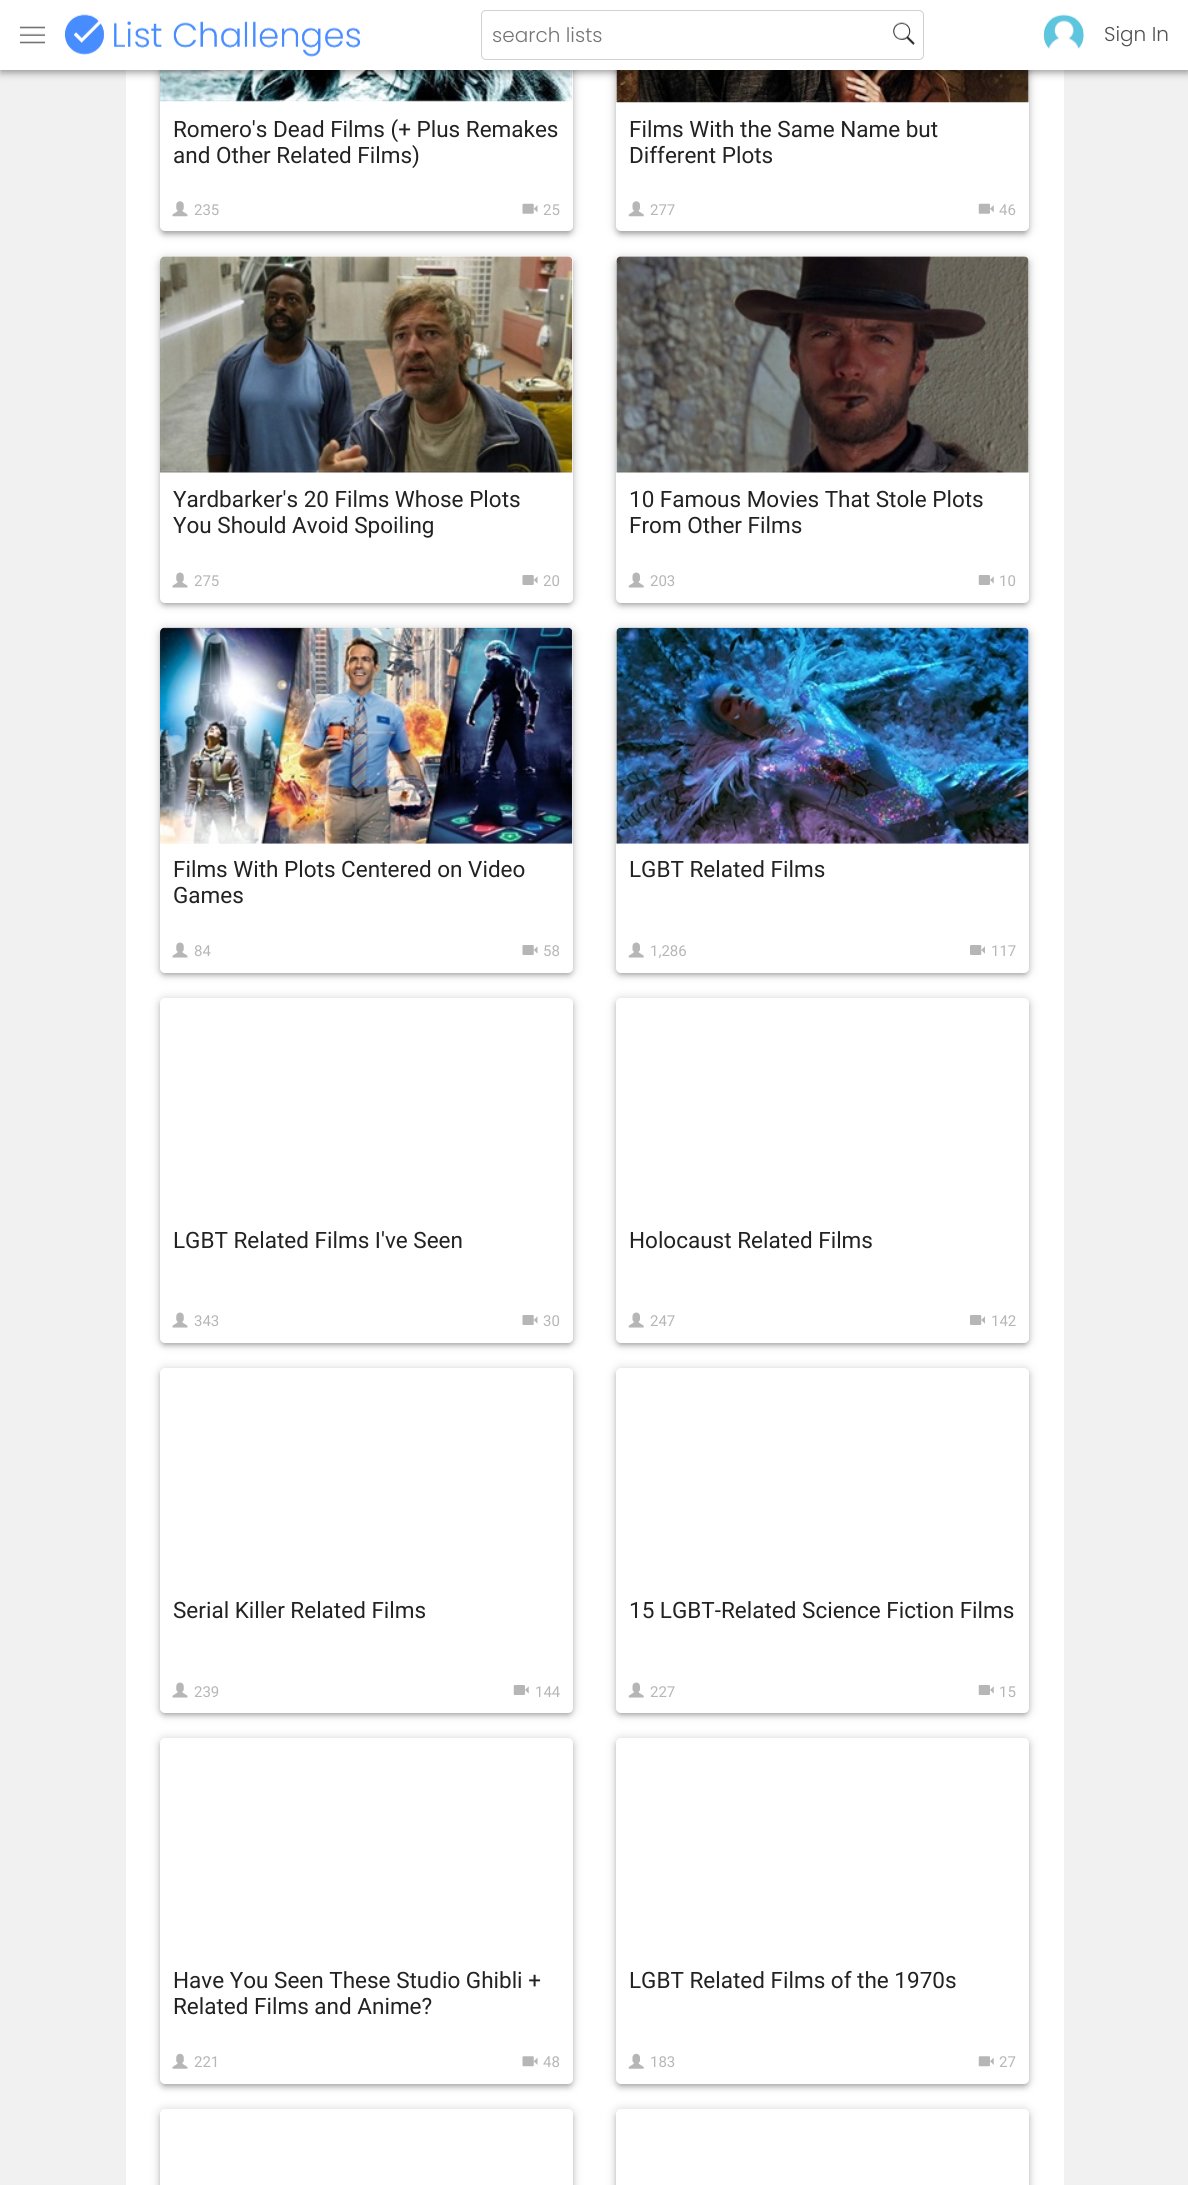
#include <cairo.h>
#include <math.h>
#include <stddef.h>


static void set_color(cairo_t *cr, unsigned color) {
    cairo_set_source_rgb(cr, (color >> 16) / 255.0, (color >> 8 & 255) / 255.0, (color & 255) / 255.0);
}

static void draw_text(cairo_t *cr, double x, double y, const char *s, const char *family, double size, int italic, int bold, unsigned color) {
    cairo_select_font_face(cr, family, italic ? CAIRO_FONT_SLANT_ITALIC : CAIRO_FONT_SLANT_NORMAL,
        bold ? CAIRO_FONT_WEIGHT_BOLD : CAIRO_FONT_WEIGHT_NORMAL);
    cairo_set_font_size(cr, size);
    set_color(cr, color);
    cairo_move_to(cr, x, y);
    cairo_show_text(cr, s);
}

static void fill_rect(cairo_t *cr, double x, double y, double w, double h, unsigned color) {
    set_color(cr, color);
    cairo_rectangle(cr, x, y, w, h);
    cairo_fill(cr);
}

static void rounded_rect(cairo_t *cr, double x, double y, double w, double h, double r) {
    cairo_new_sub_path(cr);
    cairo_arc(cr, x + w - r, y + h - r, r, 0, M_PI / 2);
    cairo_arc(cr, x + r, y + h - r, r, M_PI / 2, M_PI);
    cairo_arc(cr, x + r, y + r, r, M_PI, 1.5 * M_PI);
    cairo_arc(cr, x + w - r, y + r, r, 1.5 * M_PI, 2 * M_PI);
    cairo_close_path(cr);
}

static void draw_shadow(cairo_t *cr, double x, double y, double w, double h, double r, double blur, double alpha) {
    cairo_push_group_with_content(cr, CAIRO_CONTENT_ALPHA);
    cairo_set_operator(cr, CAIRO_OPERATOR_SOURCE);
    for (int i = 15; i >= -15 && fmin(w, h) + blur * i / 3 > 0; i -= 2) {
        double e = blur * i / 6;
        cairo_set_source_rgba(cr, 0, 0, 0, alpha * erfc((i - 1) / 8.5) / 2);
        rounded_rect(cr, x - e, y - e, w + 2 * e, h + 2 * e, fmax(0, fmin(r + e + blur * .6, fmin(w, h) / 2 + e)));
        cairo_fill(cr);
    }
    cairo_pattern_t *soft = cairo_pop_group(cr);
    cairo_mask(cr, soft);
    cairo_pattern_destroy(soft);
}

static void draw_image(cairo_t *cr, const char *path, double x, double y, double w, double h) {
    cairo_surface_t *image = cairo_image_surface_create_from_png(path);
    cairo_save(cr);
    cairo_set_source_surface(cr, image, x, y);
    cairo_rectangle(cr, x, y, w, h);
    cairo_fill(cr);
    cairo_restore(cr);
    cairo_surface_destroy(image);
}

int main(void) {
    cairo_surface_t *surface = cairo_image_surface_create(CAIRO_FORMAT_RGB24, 1188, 2185);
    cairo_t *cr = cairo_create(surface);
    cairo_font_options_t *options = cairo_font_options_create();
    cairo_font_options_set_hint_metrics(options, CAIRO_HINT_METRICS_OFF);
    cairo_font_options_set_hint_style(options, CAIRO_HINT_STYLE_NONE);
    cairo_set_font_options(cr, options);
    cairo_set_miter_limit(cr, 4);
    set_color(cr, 0xF1F1F1);
    cairo_paint(cr);
    fill_rect(cr, 126, 70, 938, 2115, 0xFFFFFF);
    set_color(cr, 0x000000);
    draw_shadow(cr, 160, -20, 413, 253, 5, 5, 0.2);
    draw_shadow(cr, 163, -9, 407, 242, 2.5, 2, 0.12);
    draw_shadow(cr, 160, -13, 413, 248, 5, 2.5, 0.14);
    set_color(cr, 0xFFFFFF);
    rounded_rect(cr, 160, -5, 413, 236, 5);
    cairo_fill(cr);
    draw_image(cr, "assets/img5.png", 160, 70, 413, 32);
    set_color(cr, 0x000000);
    draw_shadow(cr, 616, -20, 413, 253, 5, 5, 0.2);
    draw_shadow(cr, 619, -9, 407, 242, 2.5, 2, 0.12);
    draw_shadow(cr, 616, -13, 413, 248, 5, 2.5, 0.14);
    set_color(cr, 0xFFFFFF);
    rounded_rect(cr, 616, -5, 413, 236, 5);
    cairo_fill(cr);
    draw_image(cr, "assets/img8.png", 616, 70, 413, 33);
    set_color(cr, 0x000000);
    draw_shadow(cr, 1, 4, 1187, 67, 0, 2.5, 0.2);
    draw_shadow(cr, 0, 1, 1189, 70, 0, 6, 0.12);
    draw_shadow(cr, 0, 5, 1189, 70, 0, 3, 0.14);
    fill_rect(cr, 0, 0, 1188, 70, 0xFFFFFF);
    draw_image(cr, "assets/img1.png", 20, 26, 25, 18);
    draw_image(cr, "assets/img2.png", 65, 14, 295, 43);
    rounded_rect(cr, 481.5, 10.5, 442, 49, 4.5);
    set_color(cr, 0xD1D1D1);
    cairo_set_line_width(cr, 1);
    cairo_stroke(cr);
    draw_text(cr, 492, 42, "search lists", "Poppins Light", 20, 0, 0, 0x757575);
    draw_image(cr, "assets/img3.png", 893, 22, 22, 23);
    draw_image(cr, "assets/img4.png", 1043, 14, 41, 35);
    draw_text(cr, 1104, 41, "Sign In", "Poppins Light", 20, 0, 0, 0x515151);
    draw_text(cr, 173, 137, "Romero's Dead Films (+ Plus Remakes", "Roboto", 22.5, 0, 0, 0x222222);
    draw_text(cr, 173, 163, "and Other Related Films)", "Roboto", 22.5, 0, 0, 0x222222);
    draw_image(cr, "assets/img6.png", 172, 201, 16, 16);
    draw_text(cr, 194, 215, "235", "Roboto", 15, 0, 0, 0xB6B6B6);
    draw_image(cr, "assets/img7.png", 522, 203, 16, 11);
    draw_text(cr, 543, 215, "25", "Roboto", 15, 0, 0, 0xB6B6B6);
    draw_text(cr, 629, 137, "Films With the Same Name but", "Roboto", 22.5, 0, 0, 0x222222);
    draw_text(cr, 629, 163, "Different Plots", "Roboto", 22.5, 0, 0, 0x222222);
    draw_image(cr, "assets/img9.png", 628, 201, 16, 16);
    draw_text(cr, 650, 215, "277", "Roboto", 15, 0, 0, 0xB6B6B6);
    draw_image(cr, "assets/img10.png", 978, 203, 16, 11);
    draw_text(cr, 999, 215, "46", "Roboto", 15, 0, 0, 0xB6B6B6);
    set_color(cr, 0x000000);
    draw_shadow(cr, 160, 258, 413, 346, 5, 5, 0.2);
    draw_shadow(cr, 163, 263, 407, 341, 2.5, 2, 0.12);
    draw_shadow(cr, 160, 260, 413, 346, 5, 2.5, 0.14);
    set_color(cr, 0xFFFFFF);
    rounded_rect(cr, 160, 256, 413, 347, 5);
    cairo_fill(cr);
    draw_image(cr, "assets/img11.png", 160, 256, 413, 217);
    draw_text(cr, 173, 507, "Yardbarker's 20 Films Whose Plots", "Roboto", 22.5, 0, 0, 0x222222);
    draw_text(cr, 173, 533, "You Should Avoid Spoiling", "Roboto", 22.5, 0, 0, 0x222222);
    draw_image(cr, "assets/img12.png", 172, 572, 16, 16);
    draw_text(cr, 194, 586, "275", "Roboto", 15, 0, 0, 0xB6B6B6);
    draw_image(cr, "assets/img13.png", 522, 575, 16, 10);
    draw_text(cr, 543, 586, "20", "Roboto", 15, 0, 0, 0xB6B6B6);
    set_color(cr, 0x000000);
    draw_shadow(cr, 616, 258, 413, 346, 5, 5, 0.2);
    draw_shadow(cr, 619, 263, 407, 341, 2.5, 2, 0.12);
    draw_shadow(cr, 616, 260, 413, 346, 5, 2.5, 0.14);
    set_color(cr, 0xFFFFFF);
    rounded_rect(cr, 616, 256, 413, 347, 5);
    cairo_fill(cr);
    draw_image(cr, "assets/img14.png", 616, 256, 413, 217);
    draw_text(cr, 629, 507, "10 Famous Movies That Stole Plots", "Roboto", 22.5, 0, 0, 0x222222);
    draw_text(cr, 629, 533, "From Other Films", "Roboto", 22.5, 0, 0, 0x222222);
    draw_image(cr, "assets/img15.png", 628, 572, 16, 16);
    draw_text(cr, 650, 586, "203", "Roboto", 15, 0, 0, 0xB6B6B6);
    draw_image(cr, "assets/img16.png", 978, 575, 16, 10);
    draw_text(cr, 999, 586, "10", "Roboto", 15, 0, 0, 0xB6B6B6);
    set_color(cr, 0x000000);
    draw_shadow(cr, 160, 629, 413, 345, 5, 5, 0.2);
    draw_shadow(cr, 163, 634, 407, 340, 2.5, 2, 0.12);
    draw_shadow(cr, 160, 631, 413, 345, 5, 2.5, 0.14);
    set_color(cr, 0xFFFFFF);
    rounded_rect(cr, 160, 628, 413, 345, 5);
    cairo_fill(cr);
    draw_image(cr, "assets/img17.png", 160, 627, 413, 217);
    draw_text(cr, 173, 877, "Films With Plots Centered on Video", "Roboto", 22.5, 0, 0, 0x222222);
    draw_text(cr, 173, 903, "Games", "Roboto", 22.5, 0, 0, 0x222222);
    draw_image(cr, "assets/img12.png", 172, 942, 16, 16);
    draw_text(cr, 194, 956, "84", "Roboto", 15, 0, 0, 0xB6B6B6);
    draw_image(cr, "assets/img13.png", 522, 945, 16, 10);
    draw_text(cr, 543, 956, "58", "Roboto", 15, 0, 0, 0xB6B6B6);
    set_color(cr, 0x000000);
    draw_shadow(cr, 616, 629, 413, 345, 5, 5, 0.2);
    draw_shadow(cr, 619, 634, 407, 340, 2.5, 2, 0.12);
    draw_shadow(cr, 616, 631, 413, 345, 5, 2.5, 0.14);
    set_color(cr, 0xFFFFFF);
    rounded_rect(cr, 616, 628, 413, 345, 5);
    cairo_fill(cr);
    draw_image(cr, "assets/img18.png", 616, 627, 413, 217);
    draw_text(cr, 629, 877, "LGBT Related Films", "Roboto", 22.5, 0, 0, 0x222222);
    draw_image(cr, "assets/img15.png", 628, 942, 16, 16);
    draw_text(cr, 650, 956, "1,286", "Roboto", 15, 0, 0, 0xB6B6B6);
    draw_image(cr, "assets/img19.png", 970, 945, 15, 10);
    draw_text(cr, 991, 956, "117", "Roboto", 15, 0, 0, 0xB6B6B6);
    set_color(cr, 0x000000);
    draw_shadow(cr, 160, 999, 413, 345, 5, 5, 0.2);
    draw_shadow(cr, 163, 1004, 407, 340, 2.5, 2, 0.12);
    draw_shadow(cr, 160, 1001, 413, 345, 5, 2.5, 0.14);
    set_color(cr, 0xFFFFFF);
    rounded_rect(cr, 160, 998, 413, 345, 5);
    cairo_fill(cr);
    draw_text(cr, 173, 1248, "LGBT Related Films I've Seen", "Roboto", 22.5, 0, 0, 0x222222);
    draw_image(cr, "assets/img12.png", 172, 1312, 16, 16);
    draw_text(cr, 194, 1326, "343", "Roboto", 15, 0, 0, 0xB6B6B6);
    draw_image(cr, "assets/img13.png", 522, 1315, 16, 10);
    draw_text(cr, 543, 1326, "30", "Roboto", 15, 0, 0, 0xB6B6B6);
    set_color(cr, 0x000000);
    draw_shadow(cr, 616, 999, 413, 345, 5, 5, 0.2);
    draw_shadow(cr, 619, 1004, 407, 340, 2.5, 2, 0.12);
    draw_shadow(cr, 616, 1001, 413, 345, 5, 2.5, 0.14);
    set_color(cr, 0xFFFFFF);
    rounded_rect(cr, 616, 998, 413, 345, 5);
    cairo_fill(cr);
    draw_text(cr, 629, 1248, "Holocaust Related Films", "Roboto", 22.5, 0, 0, 0x222222);
    draw_image(cr, "assets/img15.png", 628, 1312, 16, 16);
    draw_text(cr, 650, 1326, "247", "Roboto", 15, 0, 0, 0xB6B6B6);
    draw_image(cr, "assets/img19.png", 970, 1315, 15, 10);
    draw_text(cr, 991, 1326, "142", "Roboto", 15, 0, 0, 0xB6B6B6);
    set_color(cr, 0x000000);
    draw_shadow(cr, 160, 1369, 413, 345, 5, 5, 0.2);
    draw_shadow(cr, 163, 1374, 407, 340, 2.5, 2, 0.12);
    draw_shadow(cr, 160, 1371, 413, 345, 5, 2.5, 0.14);
    set_color(cr, 0xFFFFFF);
    rounded_rect(cr, 160, 1368, 413, 345, 5);
    cairo_fill(cr);
    draw_text(cr, 173, 1618, "Serial Killer Related Films", "Roboto", 22.5, 0, 0, 0x222222);
    draw_image(cr, "assets/img12.png", 172, 1682, 16, 16);
    draw_text(cr, 194, 1697, "239", "Roboto", 15, 0, 0, 0xB6B6B6);
    draw_image(cr, "assets/img16.png", 513, 1685, 16, 10);
    draw_text(cr, 535, 1697, "144", "Roboto", 15, 0, 0, 0xB6B6B6);
    set_color(cr, 0x000000);
    draw_shadow(cr, 616, 1369, 413, 345, 5, 5, 0.2);
    draw_shadow(cr, 619, 1374, 407, 340, 2.5, 2, 0.12);
    draw_shadow(cr, 616, 1371, 413, 345, 5, 2.5, 0.14);
    set_color(cr, 0xFFFFFF);
    rounded_rect(cr, 616, 1368, 413, 345, 5);
    cairo_fill(cr);
    draw_text(cr, 629, 1618, "15 LGBT-Related Science Fiction Films", "Roboto", 22.5, 0, 0, 0x222222);
    draw_image(cr, "assets/img15.png", 628, 1682, 16, 16);
    draw_text(cr, 650, 1697, "227", "Roboto", 15, 0, 0, 0xB6B6B6);
    draw_image(cr, "assets/img16.png", 978, 1685, 16, 10);
    draw_text(cr, 999, 1697, "15", "Roboto", 15, 0, 0, 0xB6B6B6);
    set_color(cr, 0x000000);
    draw_shadow(cr, 160, 1739, 413, 346, 5, 5, 0.2);
    draw_shadow(cr, 163, 1744, 407, 341, 2.5, 2, 0.12);
    draw_shadow(cr, 160, 1741, 413, 347, 5, 2.5, 0.14);
    set_color(cr, 0xFFFFFF);
    rounded_rect(cr, 160, 1738, 413, 346, 5);
    cairo_fill(cr);
    draw_text(cr, 173, 1988, "Have You Seen These Studio Ghibli +", "Roboto", 22.5, 0, 0, 0x222222);
    draw_text(cr, 173, 2014, "Related Films and Anime?", "Roboto", 22.5, 0, 0, 0x222222);
    draw_image(cr, "assets/img20.png", 172, 2053, 16, 16);
    draw_text(cr, 194, 2067, "221", "Roboto", 15, 0, 0, 0xB6B6B6);
    draw_image(cr, "assets/img21.png", 522, 2056, 16, 11);
    draw_text(cr, 543, 2067, "48", "Roboto", 15, 0, 0, 0xB6B6B6);
    set_color(cr, 0x000000);
    draw_shadow(cr, 616, 1739, 413, 346, 5, 5, 0.2);
    draw_shadow(cr, 619, 1744, 407, 341, 2.5, 2, 0.12);
    draw_shadow(cr, 616, 1741, 413, 347, 5, 2.5, 0.14);
    set_color(cr, 0xFFFFFF);
    rounded_rect(cr, 616, 1738, 413, 346, 5);
    cairo_fill(cr);
    draw_text(cr, 629, 1988, "LGBT Related Films of the 1970s", "Roboto", 22.5, 0, 0, 0x222222);
    draw_image(cr, "assets/img22.png", 628, 2053, 16, 16);
    draw_text(cr, 650, 2067, "183", "Roboto", 15, 0, 0, 0xB6B6B6);
    draw_image(cr, "assets/img23.png", 978, 2056, 16, 11);
    draw_text(cr, 999, 2067, "27", "Roboto", 15, 0, 0, 0xB6B6B6);
    set_color(cr, 0x000000);
    draw_shadow(cr, 160, 2110, 413, 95, 5, 5, 0.2);
    draw_shadow(cr, 160, 2113, 413, 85, 5, 2.5, 0.14);
    set_color(cr, 0xFFFFFF);
    rounded_rect(cr, 160, 2109, 413, 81, 5);
    cairo_fill(cr);
    set_color(cr, 0x000000);
    draw_shadow(cr, 616, 2110, 413, 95, 5, 5, 0.2);
    draw_shadow(cr, 616, 2113, 413, 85, 5, 2.5, 0.14);
    set_color(cr, 0xFFFFFF);
    rounded_rect(cr, 616, 2109, 413, 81, 5);
    cairo_fill(cr);
    cairo_surface_write_to_png(surface, "output.png");
    cairo_font_options_destroy(options);
    cairo_destroy(cr);
    cairo_surface_destroy(surface);
    return 0;
}
